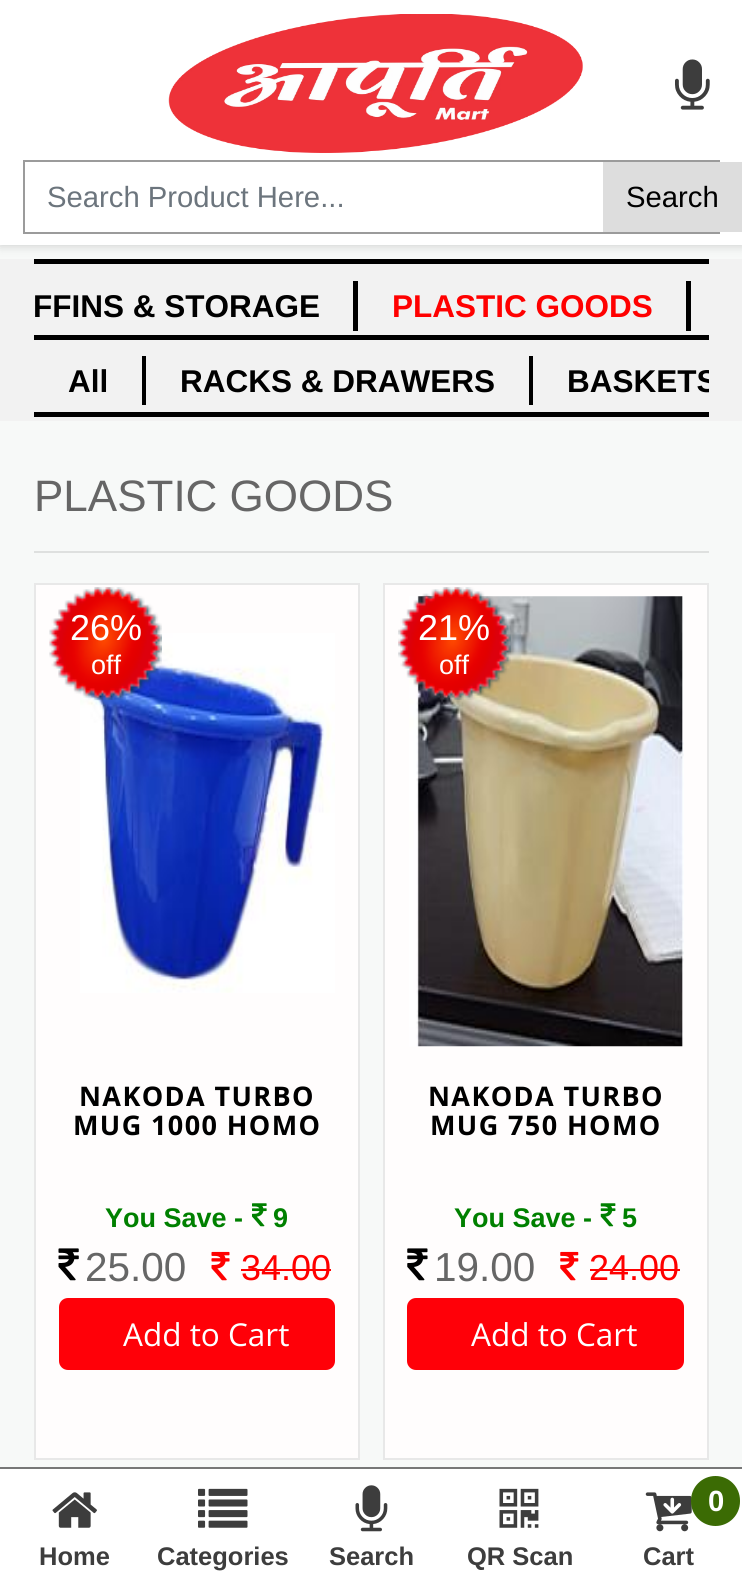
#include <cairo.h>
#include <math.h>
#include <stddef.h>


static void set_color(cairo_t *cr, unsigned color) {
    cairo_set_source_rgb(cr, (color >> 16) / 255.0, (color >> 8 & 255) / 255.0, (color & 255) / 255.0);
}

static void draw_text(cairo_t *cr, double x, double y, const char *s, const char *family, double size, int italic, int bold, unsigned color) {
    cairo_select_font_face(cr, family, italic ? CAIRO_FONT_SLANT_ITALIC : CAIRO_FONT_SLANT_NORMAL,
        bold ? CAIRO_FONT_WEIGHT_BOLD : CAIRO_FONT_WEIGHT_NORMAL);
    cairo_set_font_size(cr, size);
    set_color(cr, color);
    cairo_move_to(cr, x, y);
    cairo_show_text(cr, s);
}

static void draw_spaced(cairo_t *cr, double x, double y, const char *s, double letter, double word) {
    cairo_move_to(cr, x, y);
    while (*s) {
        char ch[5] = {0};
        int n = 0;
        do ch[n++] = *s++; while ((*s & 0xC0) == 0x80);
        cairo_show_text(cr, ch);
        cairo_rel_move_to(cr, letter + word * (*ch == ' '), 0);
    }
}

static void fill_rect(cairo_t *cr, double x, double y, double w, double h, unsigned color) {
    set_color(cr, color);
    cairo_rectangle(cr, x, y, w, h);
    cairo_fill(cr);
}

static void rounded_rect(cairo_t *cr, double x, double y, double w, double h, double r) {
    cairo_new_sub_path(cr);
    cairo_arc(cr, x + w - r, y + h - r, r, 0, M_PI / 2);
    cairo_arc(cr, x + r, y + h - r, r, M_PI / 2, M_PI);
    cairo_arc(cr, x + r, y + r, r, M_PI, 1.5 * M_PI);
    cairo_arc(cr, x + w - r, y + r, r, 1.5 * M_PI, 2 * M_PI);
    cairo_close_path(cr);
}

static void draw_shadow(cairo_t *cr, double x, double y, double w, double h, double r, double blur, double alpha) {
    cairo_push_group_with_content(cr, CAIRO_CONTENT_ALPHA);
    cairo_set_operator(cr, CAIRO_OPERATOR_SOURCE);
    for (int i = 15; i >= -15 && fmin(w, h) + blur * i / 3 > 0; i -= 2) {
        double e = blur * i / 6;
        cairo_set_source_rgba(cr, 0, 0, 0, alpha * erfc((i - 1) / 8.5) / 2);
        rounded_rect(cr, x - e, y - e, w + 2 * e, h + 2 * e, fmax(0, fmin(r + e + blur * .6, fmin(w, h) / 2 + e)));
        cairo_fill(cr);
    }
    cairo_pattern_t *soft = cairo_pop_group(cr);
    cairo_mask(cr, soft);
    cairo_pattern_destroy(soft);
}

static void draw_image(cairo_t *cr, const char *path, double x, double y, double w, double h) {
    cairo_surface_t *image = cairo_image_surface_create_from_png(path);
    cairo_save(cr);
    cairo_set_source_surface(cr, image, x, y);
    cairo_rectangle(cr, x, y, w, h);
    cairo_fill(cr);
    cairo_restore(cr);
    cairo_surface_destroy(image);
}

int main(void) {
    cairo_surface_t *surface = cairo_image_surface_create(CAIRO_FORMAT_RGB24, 742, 1584);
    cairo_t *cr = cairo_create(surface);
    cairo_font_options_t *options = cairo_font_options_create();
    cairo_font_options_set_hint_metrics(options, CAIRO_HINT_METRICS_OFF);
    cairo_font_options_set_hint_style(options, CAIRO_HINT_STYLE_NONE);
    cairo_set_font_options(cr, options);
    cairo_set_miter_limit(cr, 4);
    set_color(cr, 0xF7F9F8);
    cairo_paint(cr);
    fill_rect(cr, 0, 259, 742, 162, 0xF2F2F2);
    fill_rect(cr, 34, 259, 675, 5, 0x000000);
    set_color(cr, 0x000000);
    draw_shadow(cr, 0, 0, 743, 245, 0, 5.5, 0.2);
    fill_rect(cr, 0, 0, 742, 245, 0xFFFFFF);
    draw_image(cr, "assets/img1.png", 168, 14, 415, 139);
    draw_image(cr, "assets/img2.png", 675, 59, 35, 51);
    cairo_rectangle(cr, 24, 161, 695, 72);
    set_color(cr, 0x9B9B9B);
    cairo_stroke(cr);
    draw_text(cr, 47, 207, "Search Product Here...", "Liberation Sans", 29.25, 0, 0, 0x6C757D);
    fill_rect(cr, 603, 162, 139, 70, 0xDDDDDD);
    draw_text(cr, 626, 207, "Search", "Liberation Sans", 29.25, 0, 0, 0x000000);
    fill_rect(cr, 353, 281, 5, 50, 0x000000);
    draw_text(cr, 33, 317, "FFINS & STORAGE", "Liberation Sans", 31.5, 0, 1, 0x000000);
    fill_rect(cr, 686, 281, 5, 50, 0x000000);
    draw_text(cr, 392, 317, "PLASTIC GOODS", "Liberation Sans", 31.5, 0, 1, 0xFF0000);
    fill_rect(cr, 34, 335, 675, 5, 0x000000);
    fill_rect(cr, 142, 356, 4, 49, 0x000000);
    draw_text(cr, 68, 392, "All", "Liberation Sans", 31.5, 0, 1, 0x000000);
    fill_rect(cr, 529, 356, 4, 49, 0x000000);
    draw_text(cr, 180, 392, "RACKS & DRAWERS", "Liberation Sans", 31.5, 0, 1, 0x000000);
    cairo_save(cr);
    cairo_rectangle(cr, 533, 356, 176, 49);
    cairo_clip(cr);
    draw_text(cr, 567, 392, "BASKETS", "Liberation Sans", 31.5, 0, 1, 0x000000);
    cairo_restore(cr);
    fill_rect(cr, 34, 412, 675, 5, 0x000000);
    draw_text(cr, 34, 511, "PLASTIC GOODS", "Liberation Sans", 44, 0, 0, 0x666666);
    fill_rect(cr, 34, 551, 675, 2, 0xDEE0DF);
    set_color(cr, 0xFFFDFD);
    cairo_rectangle(cr, 35, 584, 324, 875);
    cairo_fill_preserve(cr);
    set_color(cr, 0xE8E8E8);
    cairo_stroke(cr);
    draw_image(cr, "assets/img7.png", 80, 633, 255, 360);
    draw_image(cr, "assets/img3.png", 49, 587, 113, 113);
    draw_text(cr, 70, 640, "26%", "Liberation Sans", 36, 0, 0, 0xFFFFFF);
    draw_text(cr, 91, 674, "off", "Liberation Sans", 27, 0, 0, 0xFFFFFF);
    draw_text(cr, 105, 1227, "You Save -", "Liberation Sans", 27, 0, 1, 0x008000);
    draw_image(cr, "assets/img4.png", 252, 1203, 15, 24);
    draw_text(cr, 273, 1227, "9", "Liberation Sans", 27, 0, 1, 0x008000);
    draw_image(cr, "assets/img5.png", 58, 1248, 21, 33);
    draw_text(cr, 85, 1281, "25.00", "Liberation Sans", 40.5, 0, 0, 0x666666);
    draw_image(cr, "assets/img6.png", 211, 1251, 19, 30);
    draw_text(cr, 241, 1280, "34.00", "Liberation Sans", 36, 0, 0, 0xFF0000);
    fill_rect(cr, 241, 1269, 90, 2, 0xFF0000);
    cairo_select_font_face(cr, "Open Sans", CAIRO_FONT_SLANT_NORMAL, CAIRO_FONT_WEIGHT_BOLD);
    cairo_set_font_size(cr, 27);
    set_color(cr, 0x000000);
    draw_spaced(cr, 79, 1106, "NAKODA TURBO", 1.4, 0);
    draw_spaced(cr, 73, 1135, "MUG 1000 HOMO", 1.4, 0);
    set_color(cr, 0xFF0008);
    rounded_rect(cr, 59, 1298, 276, 72, 9);
    cairo_fill(cr);
    draw_text(cr, 123, 1346, "Add to Cart", "Open Sans", 31.5, 0, 0, 0xFFFFFF);
    set_color(cr, 0xFFFDFD);
    cairo_rectangle(cr, 384, 584, 324, 875);
    cairo_fill_preserve(cr);
    set_color(cr, 0xE8E8E8);
    cairo_stroke(cr);
    draw_image(cr, "assets/img8.png", 409, 596, 275, 451);
    draw_image(cr, "assets/img9.png", 398, 587, 113, 113);
    draw_text(cr, 418, 640, "21%", "Liberation Sans", 36, 0, 0, 0xFFFFFF);
    draw_text(cr, 439, 674, "off", "Liberation Sans", 27, 0, 0, 0xFFFFFF);
    draw_text(cr, 454, 1227, "You Save -", "Liberation Sans", 27, 0, 1, 0x008000);
    draw_image(cr, "assets/img10.png", 600, 1203, 16, 24);
    draw_text(cr, 622, 1227, "5", "Liberation Sans", 27, 0, 1, 0x008000);
    draw_image(cr, "assets/img11.png", 407, 1248, 21, 33);
    draw_text(cr, 434, 1281, "19.00", "Liberation Sans", 40.5, 0, 0, 0x666666);
    draw_image(cr, "assets/img12.png", 560, 1251, 19, 30);
    draw_text(cr, 589, 1280, "24.00", "Liberation Sans", 36, 0, 0, 0xFF0000);
    fill_rect(cr, 590, 1269, 90, 2, 0xFF0000);
    cairo_select_font_face(cr, "Open Sans", CAIRO_FONT_SLANT_NORMAL, CAIRO_FONT_WEIGHT_BOLD);
    cairo_set_font_size(cr, 27);
    set_color(cr, 0x000000);
    draw_spaced(cr, 428, 1106, "NAKODA TURBO", 1.4, 0);
    draw_spaced(cr, 430, 1135, "MUG 750 HOMO", 1.4, 0);
    set_color(cr, 0xFF0008);
    rounded_rect(cr, 407, 1298, 277, 72, 9);
    cairo_fill(cr);
    draw_text(cr, 471, 1346, "Add to Cart", "Open Sans", 31.5, 0, 0, 0xFFFFFF);
    fill_rect(cr, 0, 1469, 742, 115, 0xFFFFFF);
    fill_rect(cr, 0, 1467, 742, 2, 0x777777);
    draw_image(cr, "assets/img13.png", 52, 1492, 45, 36);
    draw_image(cr, "assets/img14.png", 198, 1488, 50, 40);
    draw_image(cr, "assets/img15.png", 355, 1485, 33, 47);
    draw_image(cr, "assets/img16.png", 499, 1488, 40, 40);
    draw_image(cr, "assets/img17.png", 645, 1492, 47, 40);
    set_color(cr, 0x3B6B04);
    rounded_rect(cr, 691, 1476, 49, 50, 24.5);
    cairo_fill(cr);
    draw_text(cr, 708, 1511, "0", "Liberation Sans", 29.25, 0, 1, 0xFFFFFF);
    draw_text(cr, 39, 1565, "Home", "Liberation Sans", 25.5, 0, 1, 0x3D3D3D);
    draw_text(cr, 157, 1565, "Categories", "Liberation Sans", 25.5, 0, 1, 0x3D3D3D);
    draw_text(cr, 329, 1565, "Search", "Liberation Sans", 25.5, 0, 1, 0x3D3D3D);
    draw_text(cr, 467, 1565, "QR Scan", "Liberation Sans", 25.5, 0, 1, 0x3D3D3D);
    draw_text(cr, 643, 1565, "Cart", "Liberation Sans", 25.5, 0, 1, 0x3D3D3D);
    cairo_surface_write_to_png(surface, "output.png");
    cairo_font_options_destroy(options);
    cairo_destroy(cr);
    cairo_surface_destroy(surface);
    return 0;
}
